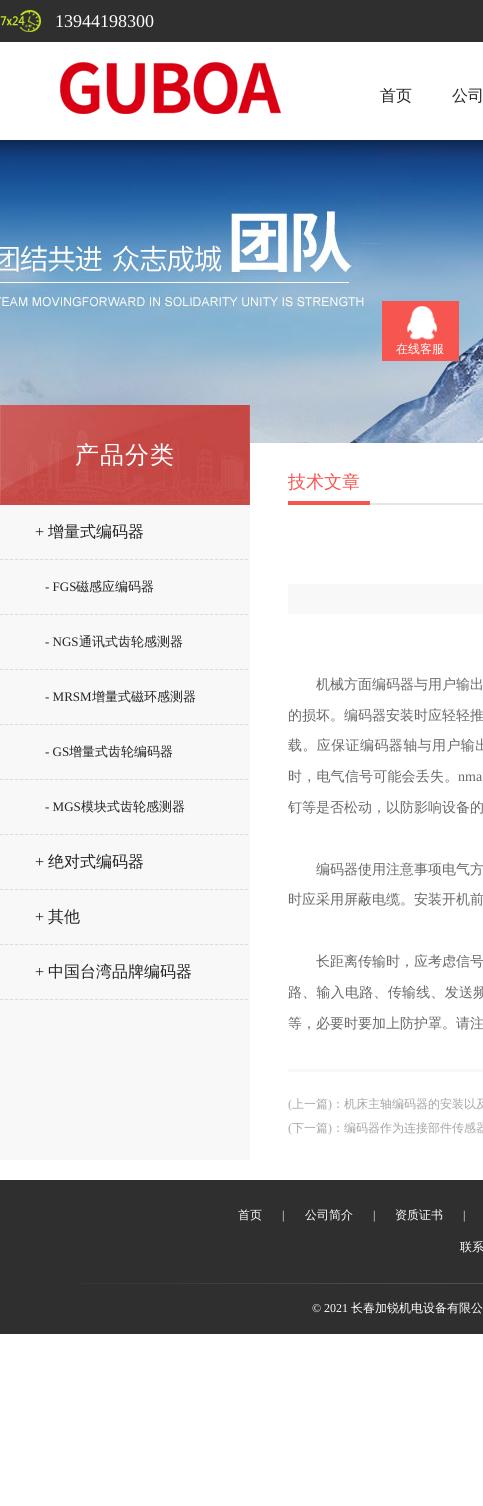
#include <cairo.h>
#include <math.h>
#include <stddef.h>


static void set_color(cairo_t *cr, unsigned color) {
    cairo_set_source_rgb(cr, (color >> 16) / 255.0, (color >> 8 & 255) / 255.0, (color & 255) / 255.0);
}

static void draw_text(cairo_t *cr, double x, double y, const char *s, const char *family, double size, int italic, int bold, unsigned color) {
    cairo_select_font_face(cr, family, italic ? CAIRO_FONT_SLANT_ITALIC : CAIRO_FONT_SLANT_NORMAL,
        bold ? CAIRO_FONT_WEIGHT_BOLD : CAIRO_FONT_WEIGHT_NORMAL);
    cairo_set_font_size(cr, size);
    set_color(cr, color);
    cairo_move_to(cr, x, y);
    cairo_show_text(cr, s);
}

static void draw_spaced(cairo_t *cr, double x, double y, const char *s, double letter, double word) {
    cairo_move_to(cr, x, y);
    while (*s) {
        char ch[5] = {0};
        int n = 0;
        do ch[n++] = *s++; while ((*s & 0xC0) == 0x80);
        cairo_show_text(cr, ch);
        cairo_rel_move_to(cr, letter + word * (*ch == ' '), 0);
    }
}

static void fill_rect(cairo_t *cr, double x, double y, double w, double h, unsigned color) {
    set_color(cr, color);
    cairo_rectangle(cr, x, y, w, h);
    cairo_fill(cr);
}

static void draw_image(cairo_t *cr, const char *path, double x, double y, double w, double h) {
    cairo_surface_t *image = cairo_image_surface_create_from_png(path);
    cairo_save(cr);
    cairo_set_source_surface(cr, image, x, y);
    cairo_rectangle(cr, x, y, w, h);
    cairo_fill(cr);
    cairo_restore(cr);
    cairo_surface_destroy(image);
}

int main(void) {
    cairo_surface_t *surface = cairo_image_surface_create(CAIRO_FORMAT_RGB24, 483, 1506);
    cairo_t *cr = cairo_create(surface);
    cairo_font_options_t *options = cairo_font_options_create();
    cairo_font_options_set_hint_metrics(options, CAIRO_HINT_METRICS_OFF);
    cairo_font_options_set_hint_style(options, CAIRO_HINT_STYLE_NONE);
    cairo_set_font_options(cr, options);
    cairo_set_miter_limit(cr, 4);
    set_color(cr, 0xFFFFFF);
    cairo_paint(cr);
    fill_rect(cr, 0, 0, 483, 42, 0x2F2F2F);
    draw_image(cr, "assets/img1.png", 0, 10, 41, 22);
    draw_text(cr, 55, 27, "13944198300", "Liberation Serif", 18, 0, 0, 0xFFFFFF);
    draw_image(cr, "assets/img4.png", 0, 140, 483, 303);
    draw_image(cr, "assets/img2.png", 0, 140, 483, 17);
    draw_image(cr, "assets/img3.png", 60, 62, 221, 52);
    draw_text(cr, 380, 101, "首页", "WenQuanYi Zen Hei Medium", 16, 0, 0, 0x222322);
    draw_text(cr, 452, 101, "公司", "WenQuanYi Zen Hei Medium", 16, 0, 0, 0x222322);
    fill_rect(cr, 382, 301, 77, 60, 0xF75550);
    draw_image(cr, "assets/img5.png", 407, 306, 30, 34);
    draw_text(cr, 396, 353, "在线客服", "WenQuanYi Zen Hei Medium", 12, 0, 0, 0xFFFFFF);
    fill_rect(cr, 0, 505, 250, 655, 0xF8F8F8);
    draw_image(cr, "assets/img6.png", 0, 405, 250, 100);
    cairo_set_font_size(cr, 24);
    set_color(cr, 0xFFFFFF);
    draw_spaced(cr, 75, 463, "产品分类", 1, 0);
    draw_image(cr, "assets/img7.png", 0, 559, 249, 1);
    draw_text(cr, 35, 537, "+", "Liberation Serif", 16, 0, 0, 0x222322);
    draw_text(cr, 48, 537, "增量式编码器", "WenQuanYi Zen Hei Medium", 16, 0, 0, 0x222322);
    draw_image(cr, "assets/img7.png", 0, 614, 249, 1);
    draw_text(cr, 45, 591, "- FGS", "Liberation Serif", 13, 0, 0, 0x222322);
    draw_text(cr, 76, 591, "磁感应编码器", "WenQuanYi Zen Hei Medium", 13, 0, 0, 0x222322);
    draw_image(cr, "assets/img7.png", 0, 669, 249, 1);
    draw_text(cr, 45, 646, "- NGS", "Liberation Serif", 13, 0, 0, 0x222322);
    draw_text(cr, 79, 646, "通讯式齿轮感测器", "WenQuanYi Zen Hei Medium", 13, 0, 0, 0x222322);
    draw_image(cr, "assets/img7.png", 0, 724, 249, 1);
    draw_text(cr, 45, 701, "- MRSM", "Liberation Serif", 13, 0, 0, 0x222322);
    draw_text(cr, 92, 701, "增量式磁环感测器", "WenQuanYi Zen Hei Medium", 13, 0, 0, 0x222322);
    draw_image(cr, "assets/img7.png", 0, 779, 249, 1);
    draw_text(cr, 45, 756, "- GS", "Liberation Serif", 13, 0, 0, 0x222322);
    draw_text(cr, 69, 756, "增量式齿轮编码器", "WenQuanYi Zen Hei Medium", 13, 0, 0, 0x222322);
    draw_image(cr, "assets/img7.png", 0, 834, 249, 1);
    draw_text(cr, 45, 811, "- MGS", "Liberation Serif", 13, 0, 0, 0x222322);
    draw_text(cr, 81, 811, "模块式齿轮感测器", "WenQuanYi Zen Hei Medium", 13, 0, 0, 0x222322);
    draw_image(cr, "assets/img7.png", 0, 889, 249, 1);
    draw_text(cr, 35, 867, "+", "Liberation Serif", 16, 0, 0, 0x222322);
    draw_text(cr, 48, 867, "绝对式编码器", "WenQuanYi Zen Hei Medium", 16, 0, 0, 0x222322);
    draw_image(cr, "assets/img7.png", 0, 944, 249, 1);
    draw_text(cr, 35, 922, "+", "Liberation Serif", 16, 0, 0, 0x222322);
    draw_text(cr, 48, 922, "其他", "WenQuanYi Zen Hei Medium", 16, 0, 0, 0x222322);
    draw_image(cr, "assets/img7.png", 0, 999, 249, 1);
    draw_text(cr, 35, 977, "+", "Liberation Serif", 16, 0, 0, 0x222322);
    draw_text(cr, 48, 977, "中国台湾品牌编码器", "WenQuanYi Zen Hei Medium", 16, 0, 0, 0x222322);
    fill_rect(cr, 370, 503, 113, 2, 0xE5E6E5);
    fill_rect(cr, 288, 501, 82, 4, 0xF75550);
    draw_text(cr, 288, 488, "技术文章", "WenQuanYi Zen Hei Medium", 18, 0, 0, 0xF75550);
    fill_rect(cr, 288, 584, 195, 30, 0xF8F8F8);
    draw_text(cr, 316, 689, "机械方面编码器与用户输出", "WenQuanYi Zen Hei Medium", 14, 0, 0, 0x686868);
    draw_text(cr, 288, 720, "的损坏。编码器安装时应轻轻推", "WenQuanYi Zen Hei Medium", 14, 0, 0, 0x686868);
    draw_spaced(cr, 288, 750, "载。应保证编码器轴与用户输出", 0.4, 0);
    draw_spaced(cr, 288, 781, "时，电气信号可能会丢失。", 0.2, 0);
    draw_text(cr, 458, 781, "nma", "Liberation Serif", 14, 0, 0, 0x686868);
    draw_text(cr, 288, 812, "钉等是否松动，以防影响设备的", "WenQuanYi Zen Hei Medium", 14, 0, 0, 0x686868);
    draw_text(cr, 316, 874, "编码器使用注意事项电气方", "WenQuanYi Zen Hei Medium", 14, 0, 0, 0x686868);
    draw_text(cr, 288, 904, "时应采用屏蔽电缆。安装开机前", "WenQuanYi Zen Hei Medium", 14, 0, 0, 0x686868);
    draw_text(cr, 316, 966, "长距离传输时，应考虑信号", "WenQuanYi Zen Hei Medium", 14, 0, 0, 0x686868);
    draw_spaced(cr, 288, 997, "路、输入电路、传输线、发送频", 0.25, 0);
    draw_text(cr, 288, 1028, "等，必要时要加上防护罩。请注", "WenQuanYi Zen Hei Medium", 14, 0, 0, 0x686868);
    fill_rect(cr, 288, 1069, 195, 3, 0xF8F8F8);
    draw_text(cr, 288, 1108, "(", "Liberation Serif", 12, 0, 0, 0xA5A5A5);
    draw_text(cr, 292, 1108, "上一篇", "WenQuanYi Zen Hei Medium", 12, 0, 0, 0xA5A5A5);
    draw_text(cr, 328, 1108, ")", "Liberation Serif", 12, 0, 0, 0xA5A5A5);
    draw_text(cr, 332, 1108, "：机床主轴编码器的安装以及", "WenQuanYi Zen Hei Medium", 12, 0, 0, 0xA5A5A5);
    draw_text(cr, 288, 1132, "(", "Liberation Serif", 12, 0, 0, 0xA5A5A5);
    draw_text(cr, 292, 1132, "下一篇", "WenQuanYi Zen Hei Medium", 12, 0, 0, 0xA5A5A5);
    draw_text(cr, 328, 1132, ")", "Liberation Serif", 12, 0, 0, 0xA5A5A5);
    draw_text(cr, 332, 1132, "：编码器作为连接部件传感器", "WenQuanYi Zen Hei Medium", 12, 0, 0, 0xA5A5A5);
    fill_rect(cr, 0, 1180, 483, 154, 0x2F2F2F);
    draw_text(cr, 238, 1219, "首页", "WenQuanYi Zen Hei Medium", 12, 0, 0, 0xFFFFFF);
    draw_text(cr, 282, 1219, "|", "Liberation Serif", 12, 0, 0, 0xFFFFFF);
    draw_text(cr, 305, 1219, "公司简介", "WenQuanYi Zen Hei Medium", 12, 0, 0, 0xFFFFFF);
    draw_text(cr, 373, 1219, "|", "Liberation Serif", 12, 0, 0, 0xFFFFFF);
    draw_text(cr, 395, 1219, "资质证书", "WenQuanYi Zen Hei Medium", 12, 0, 0, 0xFFFFFF);
    draw_text(cr, 463, 1219, "|", "Liberation Serif", 12, 0, 0, 0xFFFFFF);
    draw_text(cr, 460, 1251, "联系", "WenQuanYi Zen Hei Medium", 12, 0, 0, 0xFFFFFF);
    draw_image(cr, "assets/img8.png", 77, 1283, 406, 1);
    draw_text(cr, 312, 1312, "© 2021", "Liberation Serif", 12, 0, 0, 0xFFFFFF);
    draw_text(cr, 351, 1312, "长春加锐机电设备有限公", "WenQuanYi Zen Hei Medium", 12, 0, 0, 0xFFFFFF);
    cairo_surface_write_to_png(surface, "output.png");
    cairo_font_options_destroy(options);
    cairo_destroy(cr);
    cairo_surface_destroy(surface);
    return 0;
}
